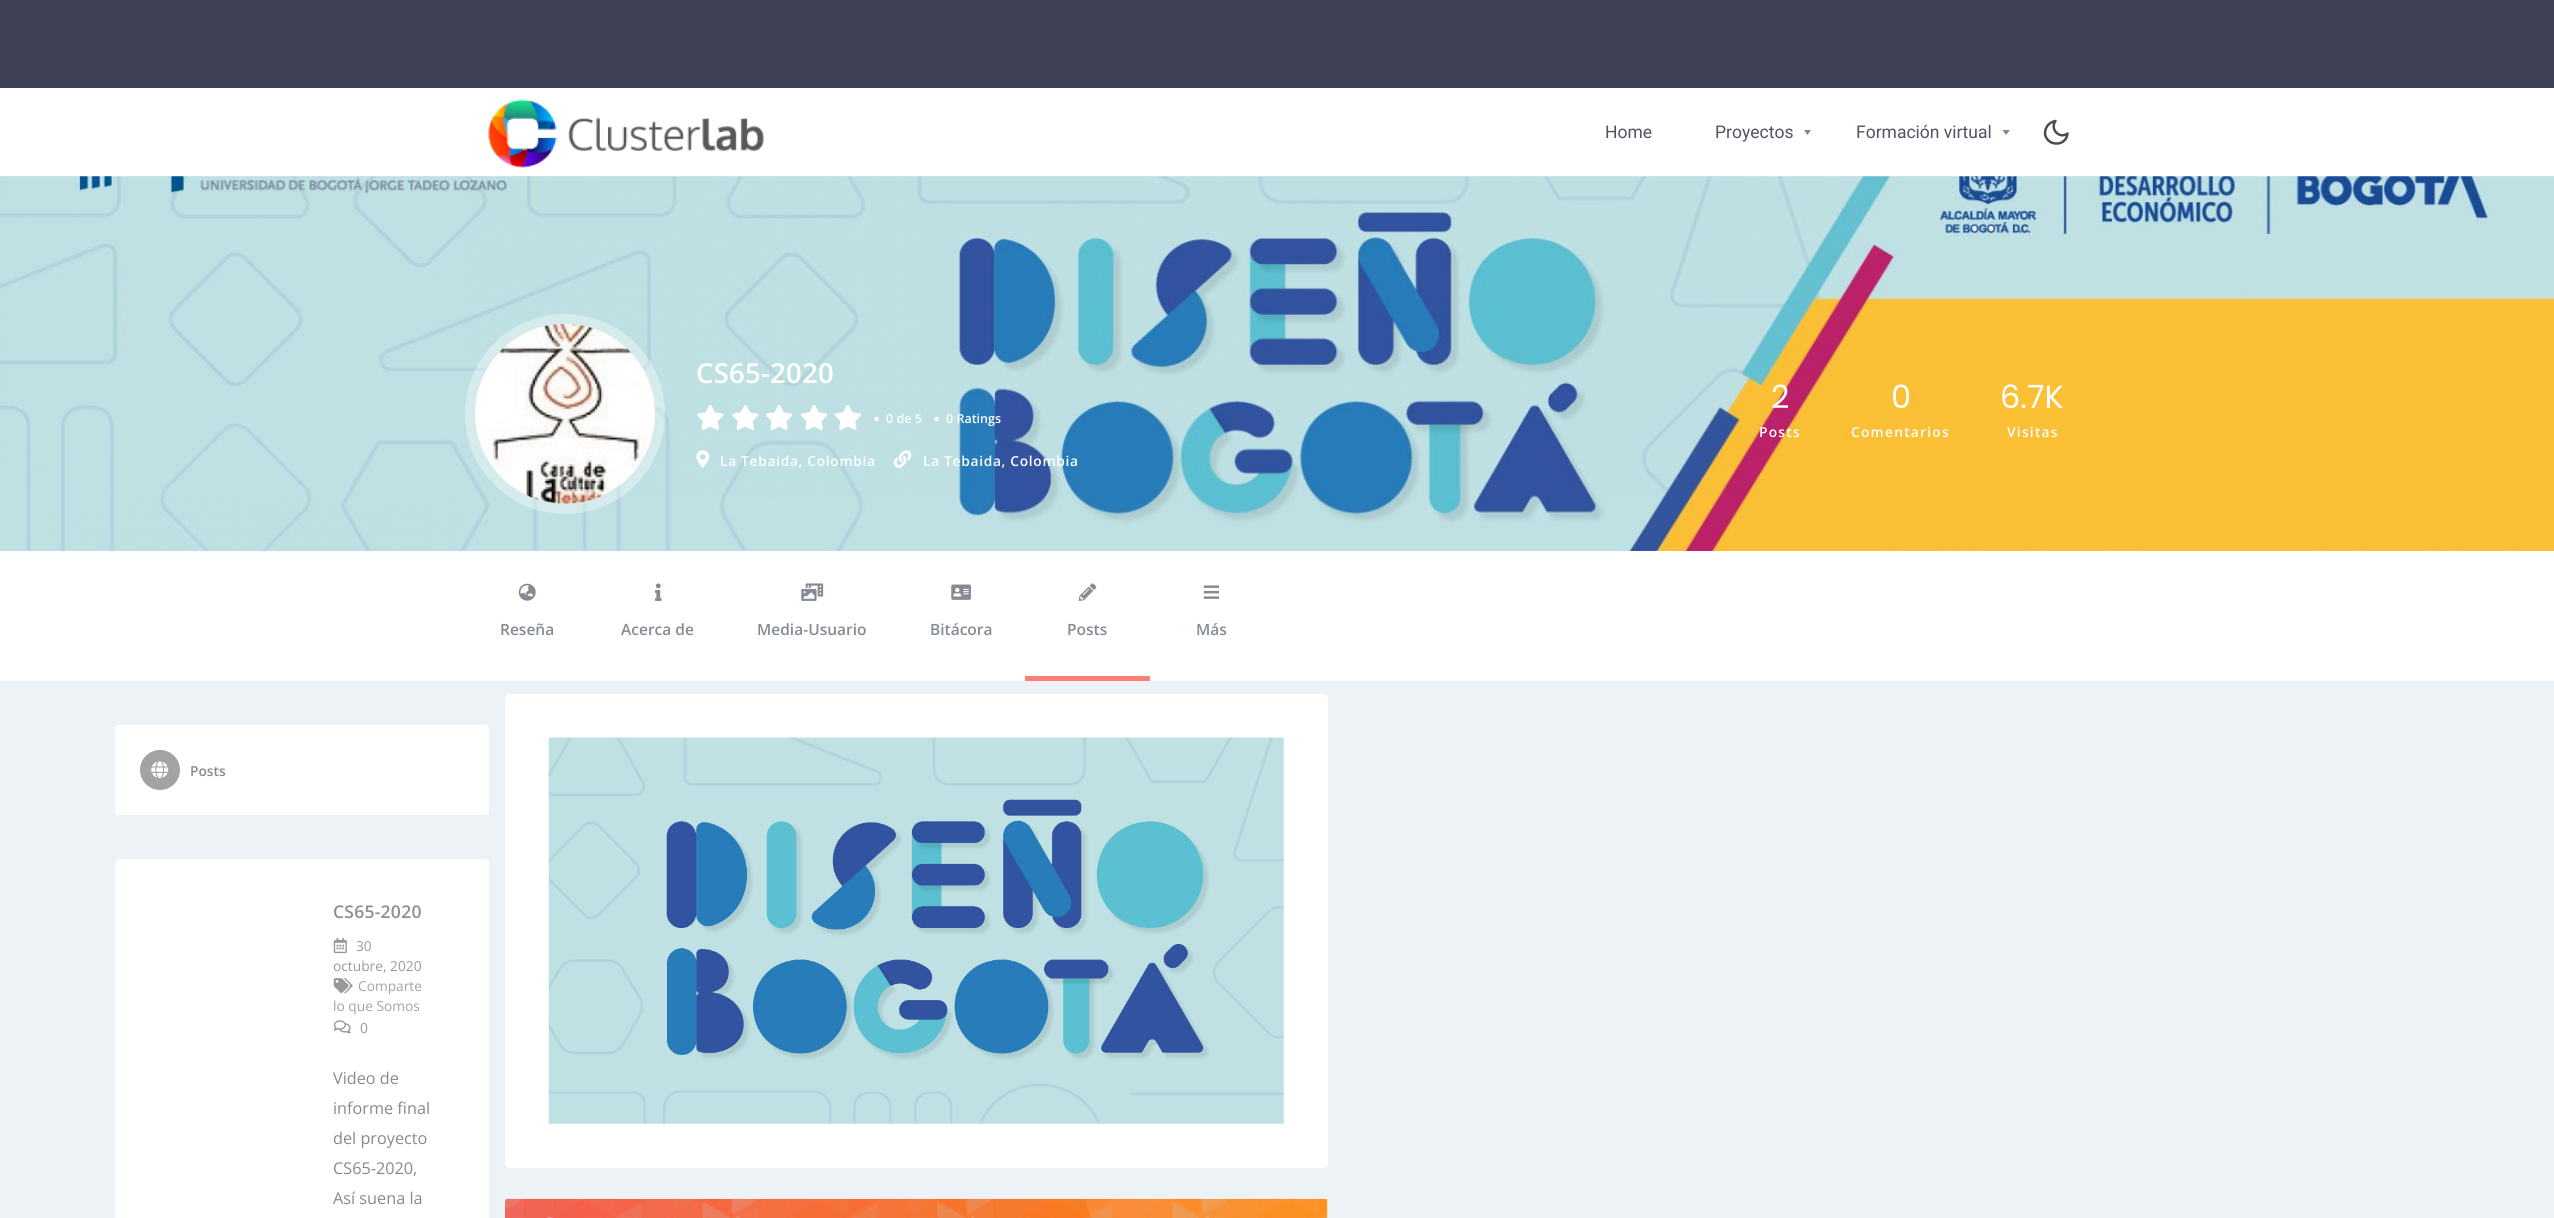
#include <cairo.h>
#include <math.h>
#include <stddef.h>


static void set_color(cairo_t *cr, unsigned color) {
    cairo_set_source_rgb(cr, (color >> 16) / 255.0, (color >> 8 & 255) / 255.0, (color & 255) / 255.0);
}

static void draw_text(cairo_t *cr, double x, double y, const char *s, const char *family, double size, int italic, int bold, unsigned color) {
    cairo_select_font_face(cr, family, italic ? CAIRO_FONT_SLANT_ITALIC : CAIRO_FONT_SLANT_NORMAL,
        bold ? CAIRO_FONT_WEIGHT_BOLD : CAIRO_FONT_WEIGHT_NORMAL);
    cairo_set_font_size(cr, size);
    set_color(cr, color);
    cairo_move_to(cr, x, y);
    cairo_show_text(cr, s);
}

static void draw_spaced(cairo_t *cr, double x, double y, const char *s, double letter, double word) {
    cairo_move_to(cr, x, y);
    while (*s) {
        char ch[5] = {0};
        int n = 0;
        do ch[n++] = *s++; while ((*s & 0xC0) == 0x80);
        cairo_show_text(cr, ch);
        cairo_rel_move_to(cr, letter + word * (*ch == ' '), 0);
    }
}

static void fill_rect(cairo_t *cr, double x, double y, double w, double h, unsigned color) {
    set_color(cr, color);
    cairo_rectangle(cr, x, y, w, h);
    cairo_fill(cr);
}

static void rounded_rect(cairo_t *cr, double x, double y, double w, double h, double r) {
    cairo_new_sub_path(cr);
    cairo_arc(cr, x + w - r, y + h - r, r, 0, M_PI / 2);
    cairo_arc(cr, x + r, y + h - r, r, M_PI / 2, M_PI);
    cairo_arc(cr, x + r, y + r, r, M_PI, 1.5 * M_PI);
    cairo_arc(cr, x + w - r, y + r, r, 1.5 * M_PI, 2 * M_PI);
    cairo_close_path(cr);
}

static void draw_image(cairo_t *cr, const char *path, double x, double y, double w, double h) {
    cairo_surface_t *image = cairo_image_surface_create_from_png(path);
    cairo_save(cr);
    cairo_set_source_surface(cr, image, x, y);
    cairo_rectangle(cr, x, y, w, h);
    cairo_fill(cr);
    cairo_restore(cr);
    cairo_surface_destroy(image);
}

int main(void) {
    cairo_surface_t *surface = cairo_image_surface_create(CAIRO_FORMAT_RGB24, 2554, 1218);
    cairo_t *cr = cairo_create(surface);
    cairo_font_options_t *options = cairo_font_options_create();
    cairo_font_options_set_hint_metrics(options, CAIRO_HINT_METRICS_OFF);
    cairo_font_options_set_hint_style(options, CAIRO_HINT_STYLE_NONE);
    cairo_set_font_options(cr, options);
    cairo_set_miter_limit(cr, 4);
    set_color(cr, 0x3F4257);
    cairo_paint(cr);
    fill_rect(cr, 0, 88, 2554, 88, 0xFFFFFF);
    draw_image(cr, "assets/img1.png", 488, 99, 276, 69);
    draw_text(cr, 1605, 138, "Home", "Roboto", 17.5, 0, 0, 0x515365);
    draw_text(cr, 1715, 138, "Proyectos", "Roboto", 17.5, 0, 0, 0x515365);
    set_color(cr, 0x858793);
    cairo_new_path(cr);
    cairo_move_to(cr, 1804, 130);
    cairo_line_to(cr, 1811, 130);
    cairo_line_to(cr, 1807.5, 135);
    cairo_close_path(cr);
    cairo_fill(cr);
    draw_text(cr, 1856, 138, "Formación virtual", "Roboto", 17.5, 0, 0, 0x515365);
    set_color(cr, 0x858793);
    cairo_new_path(cr);
    cairo_move_to(cr, 2002.5, 130);
    cairo_line_to(cr, 2010, 130);
    cairo_line_to(cr, 2006, 135);
    cairo_close_path(cr);
    cairo_fill(cr);
    cairo_new_path(cr);
    cairo_move_to(cr, 2067.5, 133.5);
    cairo_curve_to(cr, 2067, 139.5, 2062, 144, 2056, 143.5);
    cairo_curve_to(cr, 2050, 143.5, 2045, 138.5, 2045, 133);
    cairo_curve_to(cr, 2045, 127, 2049.5, 122, 2055.5, 121);
    cairo_curve_to(cr, 2049.5, 129, 2059.5, 139.5, 2067.5, 133.5);
    cairo_close_path(cr);
    set_color(cr, 0x4C4C4C);
    cairo_set_line_width(cr, 2.5);
    cairo_set_line_cap(cr, CAIRO_LINE_CAP_ROUND);
    cairo_set_line_join(cr, CAIRO_LINE_JOIN_ROUND);
    cairo_stroke(cr);
    fill_rect(cr, 0, 176, 2554, 1042, 0xEDF2F6);
    draw_image(cr, "assets/img2.png", 0, 176, 2554, 375);
    cairo_set_source_rgba(cr, 1, 1, 1, 0.35);
    cairo_arc(cr, 565, 414, 100, 0, 2 * M_PI);
    cairo_fill(cr);
    draw_image(cr, "assets/img3.png", 475, 324, 180, 180);
    cairo_select_font_face(cr, "Open Sans SemiBold", CAIRO_FONT_SLANT_NORMAL, CAIRO_FONT_WEIGHT_NORMAL);
    cairo_set_font_size(cr, 27.5);
    set_color(cr, 0xFFFFFF);
    draw_spaced(cr, 696, 383, "CS65-2020", 0.25, 0);
    draw_image(cr, "assets/img4.png", 697, 405, 27, 25);
    draw_image(cr, "assets/img5.png", 732, 405, 27, 25);
    draw_image(cr, "assets/img6.png", 766, 405, 26, 25);
    draw_image(cr, "assets/img7.png", 801, 405, 26, 25);
    draw_image(cr, "assets/img8.png", 834, 405, 27, 25);
    draw_text(cr, 873, 426, "•", "Open Sans", 19, 0, 0, 0xFFFFFF);
    draw_text(cr, 886, 423, "0 de 5", "Open Sans SemiBold", 12.5, 0, 0, 0xFFFFFF);
    draw_text(cr, 933, 426, "•", "Open Sans", 19, 0, 0, 0xFFFFFF);
    draw_text(cr, 946, 423, "0 Ratings", "Open Sans SemiBold", 12.5, 0, 0, 0xFFFFFF);
    draw_image(cr, "assets/img9.png", 696, 450, 14, 18);
    cairo_set_font_size(cr, 13.75);
    draw_spaced(cr, 720, 466, "La Tebaida, Colombia", 0.7, 0);
    draw_image(cr, "assets/img10.png", 893, 450, 19, 18);
    draw_spaced(cr, 923, 466, "La Tebaida, Colombia", 0.7, 0);
    draw_text(cr, 1771, 408, "2", "Poppins", 32, 0, 0, 0xFFFFFF);
    cairo_select_font_face(cr, "Open Sans SemiBold", CAIRO_FONT_SLANT_NORMAL, CAIRO_FONT_WEIGHT_NORMAL);
    cairo_set_font_size(cr, 13.75);
    draw_spaced(cr, 1759, 437, "Posts", 1.25, 0);
    draw_text(cr, 1891, 408, "0", "Poppins", 32, 0, 0, 0xFFFFFF);
    cairo_select_font_face(cr, "Open Sans SemiBold", CAIRO_FONT_SLANT_NORMAL, CAIRO_FONT_WEIGHT_NORMAL);
    cairo_set_font_size(cr, 13.75);
    draw_spaced(cr, 1851, 437, "Comentarios", 1.25, 0);
    draw_text(cr, 2000, 408, "6.7K", "Poppins", 32, 0, 0, 0xFFFFFF);
    cairo_select_font_face(cr, "Open Sans SemiBold", CAIRO_FONT_SLANT_NORMAL, CAIRO_FONT_WEIGHT_NORMAL);
    cairo_set_font_size(cr, 13.75);
    draw_spaced(cr, 2007, 437, "Visitas", 1.25, 0);
    fill_rect(cr, 0, 551, 2554, 130, 0xFFFFFF);
    draw_image(cr, "assets/img11.png", 518, 583, 18, 18);
    draw_text(cr, 500, 635, "Reseña", "Open Sans SemiBold", 15.5, 0, 0, 0x848B92);
    draw_image(cr, "assets/img12.png", 655, 583, 7, 18);
    draw_text(cr, 621, 635, "Acerca de", "Open Sans SemiBold", 15.5, 0, 0, 0x848B92);
    draw_image(cr, "assets/img13.png", 801, 583, 23, 18);
    draw_text(cr, 757, 635, "Media-Usuario", "Open Sans SemiBold", 15.5, 0, 0, 0x848B92);
    draw_image(cr, "assets/img14.png", 951, 584, 20, 16);
    draw_text(cr, 930, 635, "Bitácora", "Open Sans SemiBold", 15.5, 0, 0, 0x848B92);
    fill_rect(cr, 1025, 676, 125, 5, 0xFF7F76);
    draw_image(cr, "assets/img15.png", 1078, 583, 19, 18);
    draw_text(cr, 1067, 635, "Posts", "Open Sans SemiBold", 15.5, 0, 0, 0x848B92);
    draw_image(cr, "assets/img16.png", 1203, 585, 17, 14);
    draw_text(cr, 1196, 635, "Más", "Open Sans SemiBold", 15.5, 0, 0, 0x848B92);
    set_color(cr, 0xFFFFFF);
    rounded_rect(cr, 115, 725, 374, 90, 4);
    cairo_fill(cr);
    set_color(cr, 0xA3A3A3);
    cairo_arc(cr, 160, 770, 20, 0, 2 * M_PI);
    cairo_fill(cr);
    draw_image(cr, "assets/img17.png", 151, 761, 18, 18);
    draw_text(cr, 190, 776, "Posts", "Open Sans SemiBold", 13.75, 0, 0, 0x898989);
    set_color(cr, 0xFFFFFF);
    rounded_rect(cr, 115, 859, 374, 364, 5);
    cairo_fill(cr);
    cairo_set_font_size(cr, 17.5);
    set_color(cr, 0x8C9094);
    draw_spaced(cr, 333, 918, "CS65-2020", 0.25, 0);
    draw_image(cr, "assets/img18.png", 333, 938, 14, 16);
    draw_text(cr, 356, 951, "30", "Open Sans", 13.75, 0, 0, 0x999999);
    draw_text(cr, 333, 971, "octubre, 2020", "Open Sans", 13.75, 0, 0, 0x999999);
    draw_image(cr, "assets/img19.png", 333, 978, 20, 16);
    draw_text(cr, 358, 991, "Comparte", "Open Sans", 13.75, 0, 0, 0xA1A3A5);
    draw_text(cr, 333, 1011, "lo que Somos", "Open Sans", 13.75, 0, 0, 0xA1A3A5);
    draw_image(cr, "assets/img20.png", 333, 1020, 18, 14);
    draw_text(cr, 360, 1033, "0", "Open Sans", 13.75, 0, 0, 0x999999);
    draw_text(cr, 333, 1084, "Video de", "Open Sans", 16.25, 0, 0, 0x898989);
    draw_text(cr, 333, 1114, "informe final", "Open Sans", 16.25, 0, 0, 0x898989);
    draw_text(cr, 333, 1144, "del proyecto", "Open Sans", 16.25, 0, 0, 0x898989);
    draw_text(cr, 333, 1174, "CS65-2020,", "Open Sans", 16.25, 0, 0, 0x898989);
    draw_text(cr, 333, 1204, "Así suena la", "Open Sans", 16.25, 0, 0, 0x898989);
    set_color(cr, 0xFFFFFF);
    rounded_rect(cr, 505, 694, 823, 474, 5);
    cairo_fill(cr);
    draw_image(cr, "assets/img21.png", 548, 737, 736, 387);
    rounded_rect(cr, 505, 1199, 823, 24, 5);
    cairo_fill(cr);
    draw_image(cr, "assets/img22.png", 505, 1198, 823, 20);
    draw_image(cr, "assets/img23.png", 546, 1217, 7, 1);
    cairo_set_source_rgba(cr, 1, 1, 1, 0.1);
    cairo_new_path(cr);
    cairo_move_to(cr, 1122, 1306);
    cairo_line_to(cr, 1084, 1199);
    cairo_line_to(cr, 1326, 1199);
    cairo_curve_to(cr, 1327, 1199, 1328, 1200, 1328, 1202);
    cairo_line_to(cr, 1328, 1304);
    cairo_curve_to(cr, 1328, 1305, 1327, 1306, 1326, 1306);
    cairo_close_path(cr);
    cairo_fill(cr);
    cairo_surface_write_to_png(surface, "output.png");
    cairo_font_options_destroy(options);
    cairo_destroy(cr);
    cairo_surface_destroy(surface);
    return 0;
}
